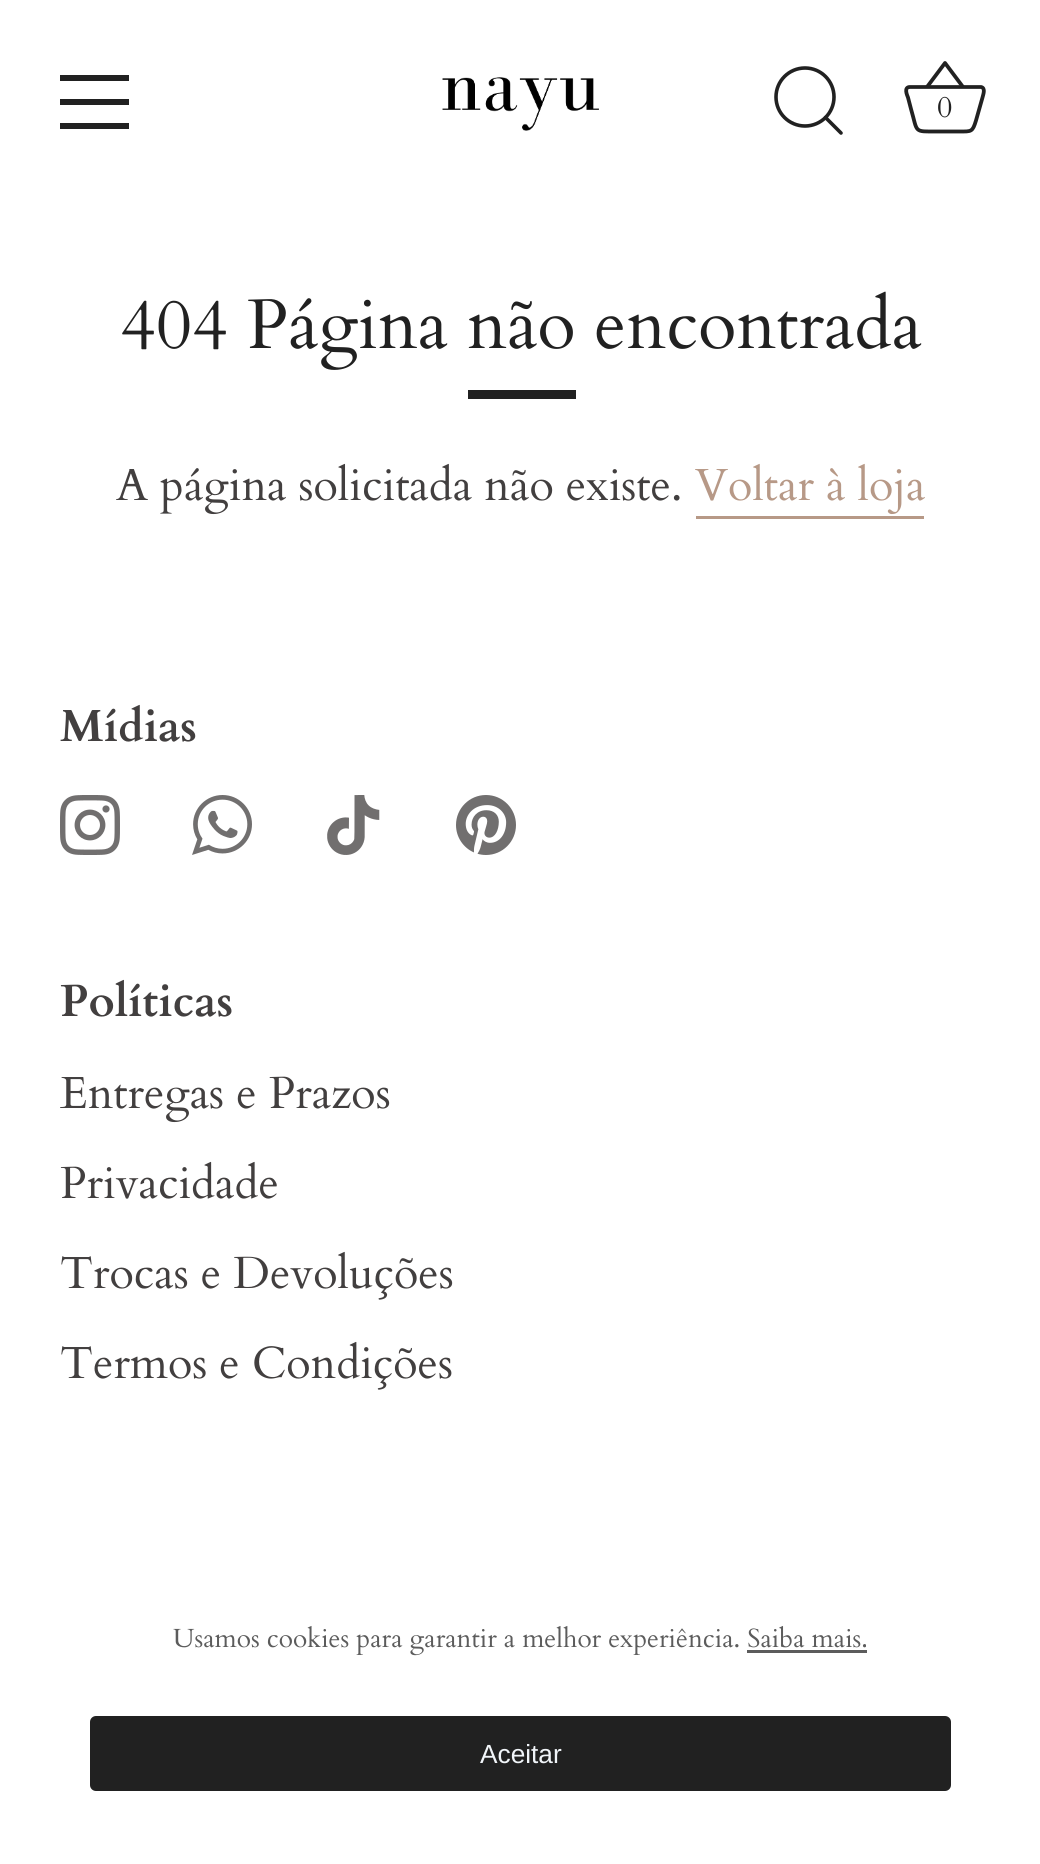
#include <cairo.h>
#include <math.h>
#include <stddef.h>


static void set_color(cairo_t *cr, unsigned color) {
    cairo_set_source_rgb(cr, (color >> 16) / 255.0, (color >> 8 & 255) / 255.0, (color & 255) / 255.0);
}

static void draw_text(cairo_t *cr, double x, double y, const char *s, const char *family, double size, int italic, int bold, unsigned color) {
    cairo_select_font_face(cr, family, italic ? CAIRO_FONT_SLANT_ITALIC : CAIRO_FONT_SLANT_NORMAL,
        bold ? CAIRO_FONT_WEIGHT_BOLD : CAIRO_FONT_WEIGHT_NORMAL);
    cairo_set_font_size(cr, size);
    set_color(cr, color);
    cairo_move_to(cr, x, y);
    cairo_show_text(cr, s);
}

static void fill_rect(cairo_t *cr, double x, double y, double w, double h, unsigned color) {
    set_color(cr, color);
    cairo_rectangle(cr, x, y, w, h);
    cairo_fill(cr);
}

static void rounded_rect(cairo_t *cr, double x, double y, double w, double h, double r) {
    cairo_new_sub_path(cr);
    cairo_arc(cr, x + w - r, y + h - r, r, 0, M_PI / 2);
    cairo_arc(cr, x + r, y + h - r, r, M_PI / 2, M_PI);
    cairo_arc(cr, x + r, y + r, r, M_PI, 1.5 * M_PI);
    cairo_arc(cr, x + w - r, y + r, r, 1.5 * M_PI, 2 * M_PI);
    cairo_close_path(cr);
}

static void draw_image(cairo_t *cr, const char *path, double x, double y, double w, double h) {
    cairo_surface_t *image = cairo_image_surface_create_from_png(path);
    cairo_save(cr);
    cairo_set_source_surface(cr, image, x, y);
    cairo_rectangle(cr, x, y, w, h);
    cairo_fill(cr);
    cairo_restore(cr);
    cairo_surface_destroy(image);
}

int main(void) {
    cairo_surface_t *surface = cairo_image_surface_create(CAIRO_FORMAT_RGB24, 1040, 1864);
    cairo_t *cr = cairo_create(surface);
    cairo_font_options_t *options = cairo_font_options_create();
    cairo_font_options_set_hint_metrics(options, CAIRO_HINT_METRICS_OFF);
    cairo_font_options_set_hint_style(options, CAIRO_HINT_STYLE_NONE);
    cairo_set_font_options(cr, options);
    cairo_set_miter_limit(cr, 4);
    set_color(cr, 0xFFFFFF);
    cairo_paint(cr);
    fill_rect(cr, 60, 75, 69, 6, 0x212121);
    fill_rect(cr, 60, 99, 69, 6, 0x212121);
    fill_rect(cr, 60, 123, 69, 6, 0x212121);
    draw_image(cr, "assets/img1.png", 442, 77, 157, 54);
    cairo_arc(cr, 805, 97, 29, 0, 2 * M_PI);
    cairo_set_line_width(cr, 3.6);
    cairo_stroke(cr);
    cairo_new_path(cr);
    cairo_move_to(cr, 841, 133);
    cairo_line_to(cr, 825.5, 117.5);
    cairo_set_line_cap(cr, CAIRO_LINE_CAP_ROUND);
    cairo_set_line_join(cr, CAIRO_LINE_JOIN_ROUND);
    cairo_stroke(cr);
    cairo_new_path(cr);
    cairo_move_to(cr, 910, 87);
    cairo_curve_to(cr, 903.5, 87, 907, 95, 908, 97.5);
    cairo_line_to(cr, 911, 109);
    cairo_curve_to(cr, 918, 133, 913, 131.5, 937.5, 131.5);
    cairo_line_to(cr, 959.5, 131.5);
    cairo_curve_to(cr, 971.5, 131.5, 972.5, 132, 976, 120.5);
    cairo_line_to(cr, 982.5, 97.5);
    cairo_curve_to(cr, 983, 95, 986, 88, 981, 87);
    cairo_line_to(cr, 910, 87);
    cairo_set_line_width(cr, 3.8);
    cairo_set_line_cap(cr, CAIRO_LINE_CAP_BUTT);
    cairo_stroke(cr);
    cairo_new_path(cr);
    cairo_move_to(cr, 927, 87);
    cairo_line_to(cr, 945, 63);
    cairo_line_to(cr, 963, 87);
    cairo_stroke(cr);
    draw_text(cr, 937, 117, "0", "Cardo", 30, 0, 0, 0x212121);
    draw_text(cr, 120, 348, "404 Página não encontrada", "Cardo", 70.25, 0, 0, 0x212121);
    fill_rect(cr, 468, 390, 108, 9, 0x212121);
    draw_text(cr, 116, 500, "A página solicitada não existe.", "Cardo", 45, 0, 0, 0x423F3F);
    draw_text(cr, 695, 500, "Voltar à loja", "Cardo", 45, 0, 0, 0xB79987);
    fill_rect(cr, 696, 516, 228, 3, 0xB79987);
    draw_text(cr, 60, 741, "Mídias", "Cardo", 45, 0, 1, 0x423F3F);
    draw_image(cr, "assets/img2.png", 60, 795, 60, 60);
    draw_image(cr, "assets/img3.png", 192, 795, 60, 60);
    draw_image(cr, "assets/img4.png", 327, 795, 53, 60);
    draw_image(cr, "assets/img5.png", 456, 795, 60, 60);
    draw_text(cr, 60, 1016, "Políticas", "Cardo", 45, 0, 1, 0x423F3F);
    draw_text(cr, 60, 1108, "Entregas e Prazos", "Cardo", 45, 0, 0, 0x423F3F);
    draw_text(cr, 60, 1198, "Privacidade", "Cardo", 45, 0, 0, 0x423F3F);
    draw_text(cr, 60, 1288, "Trocas e Devoluções", "Cardo", 45, 0, 0, 0x423F3F);
    draw_text(cr, 60, 1378, "Termos e Condições", "Cardo", 45, 0, 0, 0x423F3F);
    draw_text(cr, 173, 1647, "Usamos cookies para garantir a melhor experiência. Saiba mais.", "Cardo", 26.25, 0, 0, 0x5C5C5C);
    fill_rect(cr, 747, 1650, 120, 3, 0x5C5C5C);
    set_color(cr, 0x212121);
    rounded_rect(cr, 90, 1716, 861, 75, 6);
    cairo_fill(cr);
    draw_text(cr, 480, 1763, "Aceitar", "Liberation Sans", 26.25, 0, 0, 0xF1F5F9);
    cairo_surface_write_to_png(surface, "output.png");
    cairo_font_options_destroy(options);
    cairo_destroy(cr);
    cairo_surface_destroy(surface);
    return 0;
}
